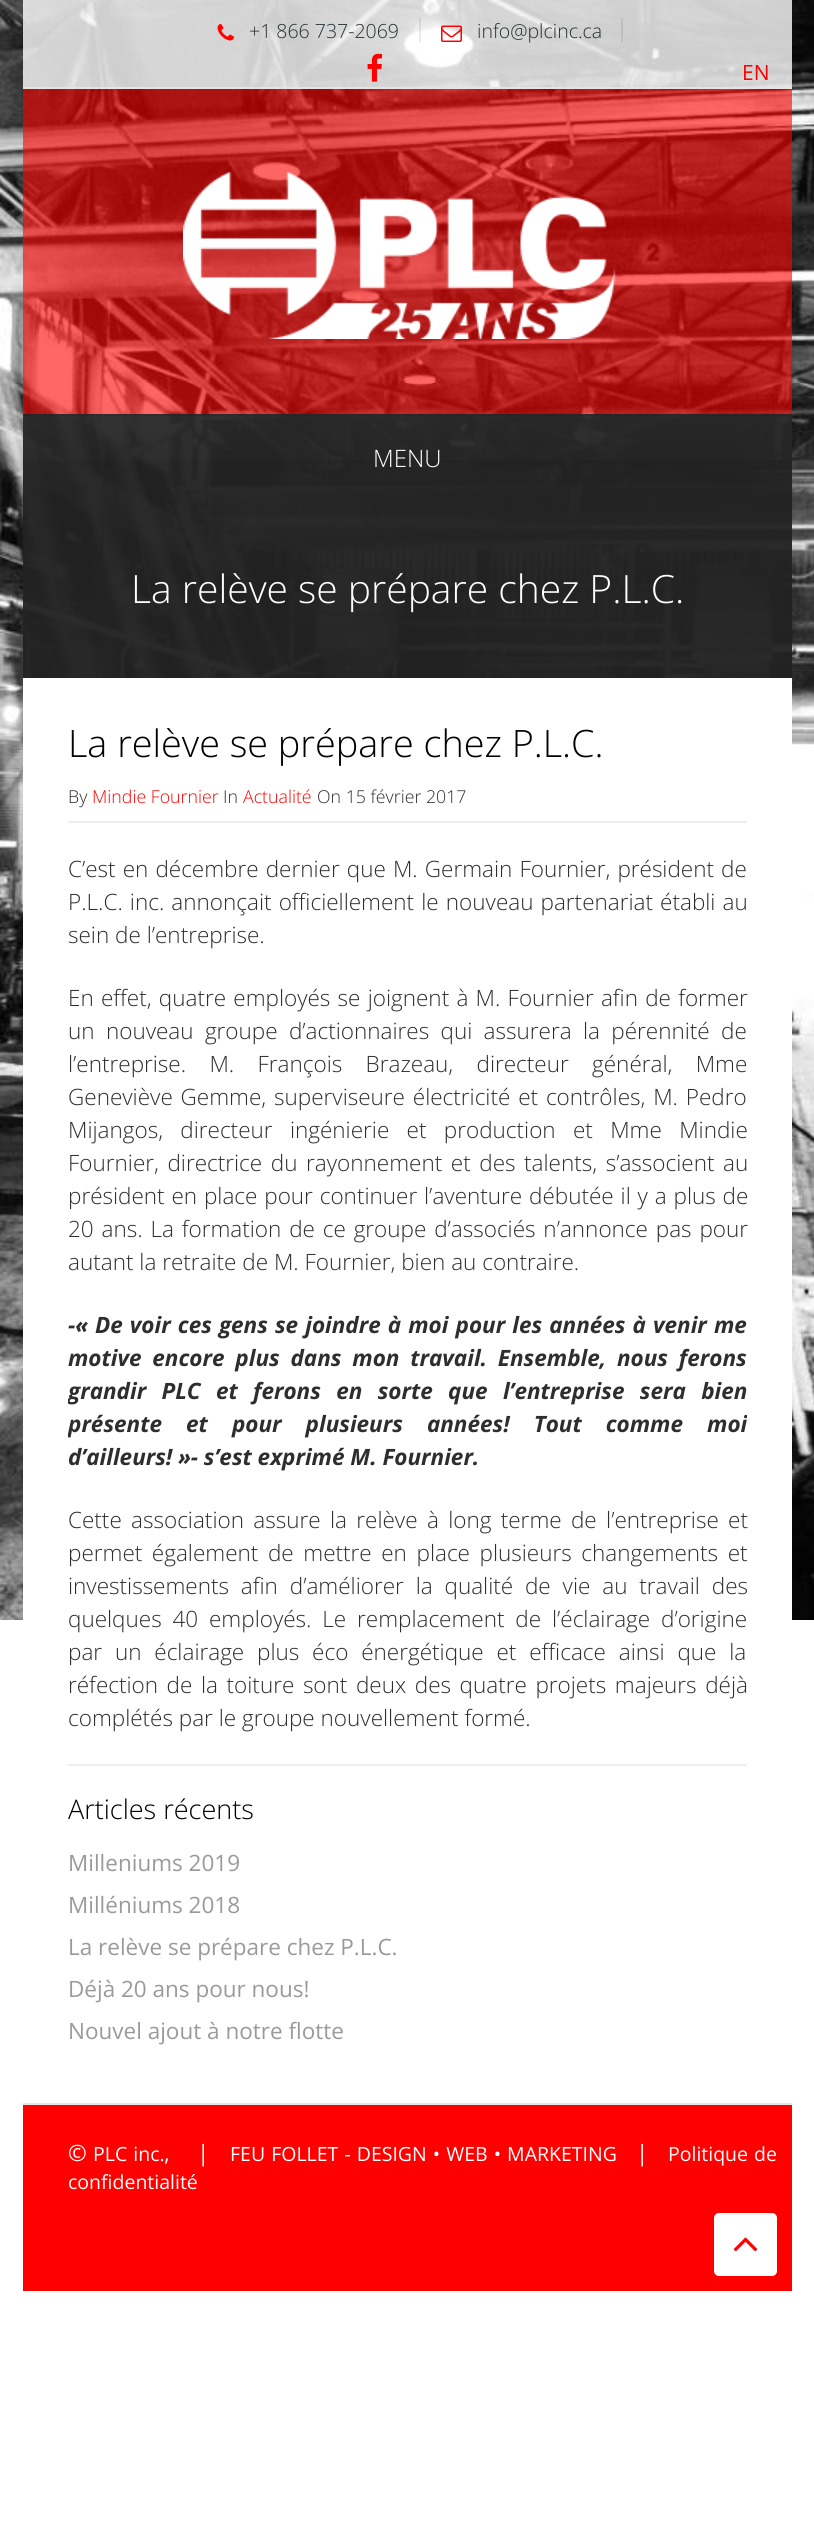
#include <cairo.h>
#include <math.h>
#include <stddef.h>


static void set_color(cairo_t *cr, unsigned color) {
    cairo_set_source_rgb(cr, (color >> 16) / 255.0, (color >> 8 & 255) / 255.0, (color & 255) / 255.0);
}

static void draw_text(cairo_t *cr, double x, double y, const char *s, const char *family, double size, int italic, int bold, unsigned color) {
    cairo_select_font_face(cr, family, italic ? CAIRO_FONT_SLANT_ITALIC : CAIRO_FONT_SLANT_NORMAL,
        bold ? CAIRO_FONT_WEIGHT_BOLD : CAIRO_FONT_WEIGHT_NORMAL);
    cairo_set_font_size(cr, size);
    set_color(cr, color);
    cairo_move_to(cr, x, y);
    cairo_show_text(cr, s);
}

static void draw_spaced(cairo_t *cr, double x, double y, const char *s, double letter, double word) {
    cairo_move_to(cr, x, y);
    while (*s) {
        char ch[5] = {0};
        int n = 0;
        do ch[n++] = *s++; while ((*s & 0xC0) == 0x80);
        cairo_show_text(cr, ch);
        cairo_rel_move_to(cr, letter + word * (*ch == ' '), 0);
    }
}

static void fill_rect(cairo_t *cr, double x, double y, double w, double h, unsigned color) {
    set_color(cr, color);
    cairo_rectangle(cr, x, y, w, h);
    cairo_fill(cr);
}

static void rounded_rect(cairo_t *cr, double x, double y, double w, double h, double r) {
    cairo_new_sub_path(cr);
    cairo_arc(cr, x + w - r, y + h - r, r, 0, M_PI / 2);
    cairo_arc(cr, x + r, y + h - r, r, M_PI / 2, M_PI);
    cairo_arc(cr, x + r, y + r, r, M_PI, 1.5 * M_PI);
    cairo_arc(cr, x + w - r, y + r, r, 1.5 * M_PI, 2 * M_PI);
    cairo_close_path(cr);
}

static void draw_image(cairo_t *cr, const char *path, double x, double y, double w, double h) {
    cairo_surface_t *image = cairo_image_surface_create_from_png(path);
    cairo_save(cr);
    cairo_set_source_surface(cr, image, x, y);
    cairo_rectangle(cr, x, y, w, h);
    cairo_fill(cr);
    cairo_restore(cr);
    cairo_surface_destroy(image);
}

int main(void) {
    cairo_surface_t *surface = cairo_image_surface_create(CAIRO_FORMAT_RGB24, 814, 2521);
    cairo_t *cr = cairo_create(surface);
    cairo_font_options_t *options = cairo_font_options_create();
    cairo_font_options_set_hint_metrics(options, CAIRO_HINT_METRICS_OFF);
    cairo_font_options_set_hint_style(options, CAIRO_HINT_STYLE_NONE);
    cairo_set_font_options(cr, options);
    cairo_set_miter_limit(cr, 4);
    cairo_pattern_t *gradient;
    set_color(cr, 0xFFFFFF);
    cairo_paint(cr);
    draw_image(cr, "assets/img1.png", 0, 0, 814, 1620);
    cairo_set_source_rgba(cr, 1, 1, 1, 0.8);
    cairo_rectangle(cr, 23, 0, 769, 87);
    cairo_fill(cr);
    fill_rect(cr, 23, 87, 769, 2, 0xE4E4E4);
    cairo_set_source_rgba(cr, 0, 0, 0, 0.08);
    cairo_rectangle(cr, 419, 18, 2, 24);
    cairo_fill(cr);
    draw_image(cr, "assets/img2.png", 217, 24, 17, 17);
    draw_text(cr, 249, 38, "+1 866 737-2069", "Open Sans Light", 19.5, 0, 0, 0x233135);
    cairo_set_source_rgba(cr, 0, 0, 0, 0.08);
    cairo_rectangle(cr, 621, 18, 2, 24);
    cairo_fill(cr);
    draw_image(cr, "assets/img3.png", 441, 25, 21, 17);
    draw_text(cr, 477, 38, "info@plcinc.ca", "Open Sans Light", 19.5, 0, 0, 0x233135);
    draw_image(cr, "assets/img4.png", 367, 53, 16, 29);
    draw_text(cr, 742, 80, "EN", "Open Sans", 21, 0, 0, 0xFF0000);
    cairo_set_source_rgba(cr, 1, 0, 0, 0.6);
    cairo_rectangle(cr, 23, 89, 769, 325);
    cairo_fill(cr);
    draw_image(cr, "assets/img5.png", 183, 171, 433, 168);
    cairo_set_source_rgba(cr, 0.133, 0.133, 0.133, 0.95);
    cairo_rectangle(cr, 23, 414, 769, 84);
    cairo_fill(cr);
    gradient = cairo_pattern_create_linear(407, 498, 407, 416);
    cairo_pattern_add_color_stop_rgba(gradient, 0, 0, 0, 0, 0.03);
    cairo_pattern_add_color_stop_rgba(gradient, 1, 1, 1, 1, 0.03);
    cairo_set_source(cr, gradient);
    cairo_pattern_destroy(gradient);
    cairo_rectangle(cr, 23, 416, 769, 44);
    cairo_fill(cr);
    cairo_set_source_rgba(cr, 0.22, 0.22, 0.22, 0.2);
    cairo_rectangle(cr, 23, 414, 769, 2);
    cairo_fill(cr);
    draw_text(cr, 373, 467, "MENU", "Open Sans Light", 24, 0, 0, 0xFFFFFF);
    cairo_set_source_rgba(cr, 0.133, 0.133, 0.133, 0.95);
    cairo_rectangle(cr, 23, 498, 769, 180);
    cairo_fill(cr);
    draw_text(cr, 131, 603, "La relève se prépare chez P.L.C.", "Open Sans Light", 39, 0, 0, 0xFFFFFF);
    fill_rect(cr, 23, 678, 769, 942, 0xFFFFFF);
    draw_text(cr, 68, 757, "La relève se prépare chez P.L.C.", "Open Sans Light", 37.75, 0, 0, 0x000000);
    draw_text(cr, 68, 803, "By", "Open Sans Light", 17.75, 0, 0, 0x2E2E2E);
    draw_text(cr, 92, 803, "Mindie Fournier", "Open Sans Light", 17.75, 0, 0, 0xFF0000);
    draw_text(cr, 223, 803, "In", "Open Sans Light", 17.75, 0, 0, 0x2E2E2E);
    draw_text(cr, 243, 803, "Actualité", "Open Sans Light", 17.75, 0, 0, 0xFF0000);
    draw_text(cr, 317, 803, "On 15 février 2017", "Open Sans Light", 17.75, 0, 0, 0x2E2E2E);
    fill_rect(cr, 68, 821, 679, 2, 0xEEEEEE);
    cairo_set_font_size(cr, 22.5);
    set_color(cr, 0x2E2E2E);
    draw_spaced(cr, 68, 877, "C’est en décembre dernier que M. Germain Fournier, président de", 0, 1.25);
    draw_spaced(cr, 68, 910, "P.L.C. inc. annonçait officiellement le nouveau partenariat établi au", 0, 1.25);
    draw_text(cr, 68, 943, "sein de l’entreprise.", "Open Sans Light", 22.5, 0, 0, 0x2E2E2E);
    draw_spaced(cr, 68, 1006, "En effet, quatre employés se joignent à M. Fournier afin de former", 0, 1.4);
    draw_spaced(cr, 68, 1039, "un nouveau groupe d’actionnaires qui assurera la pérennité de", 0, 5.5);
    draw_spaced(cr, 68, 1072, "l’entreprise. M. François Brazeau, directeur général, Mme", 0, 17.5);
    draw_spaced(cr, 68, 1105, "Geneviève Gemme, superviseure électricité et contrôles, M. Pedro", 0, 2);
    draw_spaced(cr, 68, 1138, "Mijangos, directeur ingénierie et production et Mme Mindie", 0, 11.5);
    draw_spaced(cr, 68, 1171, "Fournier, directrice du rayonnement et des talents, s’associent au", 0, 2.75);
    draw_spaced(cr, 68, 1204, "président en place pour continuer l’aventure débutée il y a plus de", 0, 1);
    draw_spaced(cr, 68, 1237, "20 ans. La formation de ce groupe d’associés n’annonce pas pour", 0, 2);
    draw_text(cr, 68, 1270, "autant la retraite de M. Fournier, bien au contraire.", "Open Sans Light", 22.5, 0, 0, 0x2E2E2E);
    cairo_select_font_face(cr, "Open Sans", CAIRO_FONT_SLANT_ITALIC, CAIRO_FONT_WEIGHT_BOLD);
    draw_spaced(cr, 68, 1333, "-« De voir ces gens se joindre à moi pour les années à venir me", 0, 1.25);
    draw_spaced(cr, 68, 1366, "motive encore plus dans mon travail. Ensemble, nous ferons", 0, 5);
    cairo_save(cr);
    cairo_rectangle(cr, 68, 723, 679, 1043);
    cairo_clip(cr);
    draw_spaced(cr, 68, 1399, "grandir PLC et ferons en sorte que l’entreprise sera bien", 0, 9.5);
    draw_spaced(cr, 68, 1432, "présente et pour plusieurs années! Tout comme moi", 0, 18.25);
    cairo_restore(cr);
    draw_text(cr, 68, 1465, "d’ailleurs! »- s’est exprimé M. Fournier.", "Open Sans", 22.5, 1, 1, 0x2E2E2E);
    cairo_select_font_face(cr, "Open Sans Light", CAIRO_FONT_SLANT_NORMAL, CAIRO_FONT_WEIGHT_NORMAL);
    draw_spaced(cr, 68, 1528, "Cette association assure la relève à long terme de l’entreprise et", 0, 3.5);
    draw_spaced(cr, 68, 1561, "permet également de mettre en place plusieurs changements et", 0, 3.75);
    draw_spaced(cr, 68, 1594, "investissements afin d’améliorer la qualité de vie au travail des", 0, 6);
    draw_spaced(cr, 68, 1627, "quelques 40 employés. Le remplacement de l’éclairage d’origine", 0, 5);
    draw_spaced(cr, 68, 1660, "par un éclairage plus éco énergétique et efficace ainsi que la", 0, 7);
    draw_spaced(cr, 68, 1693, "réfection de la toiture sont deux des quatre projets majeurs déjà", 0, 2.75);
    draw_text(cr, 68, 1726, "complétés par le groupe nouvellement formé.", "Open Sans Light", 22.5, 0, 0, 0x2E2E2E);
    fill_rect(cr, 68, 1764, 679, 2, 0xEEEEEE);
    draw_text(cr, 68, 1819, "Articles récents", "Open Sans Light", 27, 0, 0, 0x000000);
    draw_text(cr, 68, 1871, "Milleniums 2019", "Open Sans", 22.5, 0, 0, 0x9A9A9A);
    draw_text(cr, 68, 1913, "Milléniums 2018", "Open Sans", 22.5, 0, 0, 0x9A9A9A);
    draw_text(cr, 68, 1955, "La relève se prépare chez P.L.C.", "Open Sans", 22.5, 0, 0, 0x9A9A9A);
    draw_text(cr, 68, 1997, "Déjà 20 ans pour nous!", "Open Sans", 22.5, 0, 0, 0x9A9A9A);
    draw_text(cr, 68, 2039, "Nouvel ajout à notre flotte", "Open Sans", 22.5, 0, 0, 0x9A9A9A);
    fill_rect(cr, 23, 2103, 769, 2, 0xE6E6E6);
    fill_rect(cr, 23, 2105, 769, 186, 0xFF0000);
    draw_text(cr, 68, 2161, "©", "Open Sans", 22.5, 0, 0, 0xFFFFFF);
    cairo_set_font_size(cr, 19.5);
    draw_spaced(cr, 93, 2161, "PLC inc.", 0, 1);
    draw_text(cr, 164, 2161, ",", "Open Sans", 22.5, 0, 0, 0xFFFFFF);
    draw_text(cr, 197, 2161, "|", "Open Sans", 22.5, 0, 0, 0xFFFFFF);
    cairo_set_font_size(cr, 19.5);
    draw_spaced(cr, 230, 2161, "FEU FOLLET - DESIGN • WEB • MARKETING", 0, 1);
    draw_text(cr, 636, 2161, "|", "Open Sans", 22.5, 0, 0, 0xFFFFFF);
    cairo_set_font_size(cr, 19.5);
    draw_spaced(cr, 668, 2161, "Politique de", 0, 1);
    draw_text(cr, 68, 2189, "confidentialité", "Open Sans", 19.5, 0, 0, 0xFFFFFF);
    rounded_rect(cr, 714, 2213, 63, 63, 5);
    cairo_fill(cr);
    draw_image(cr, "assets/img6.png", 733, 2237, 25, 15);
    cairo_surface_write_to_png(surface, "output.png");
    cairo_font_options_destroy(options);
    cairo_destroy(cr);
    cairo_surface_destroy(surface);
    return 0;
}
